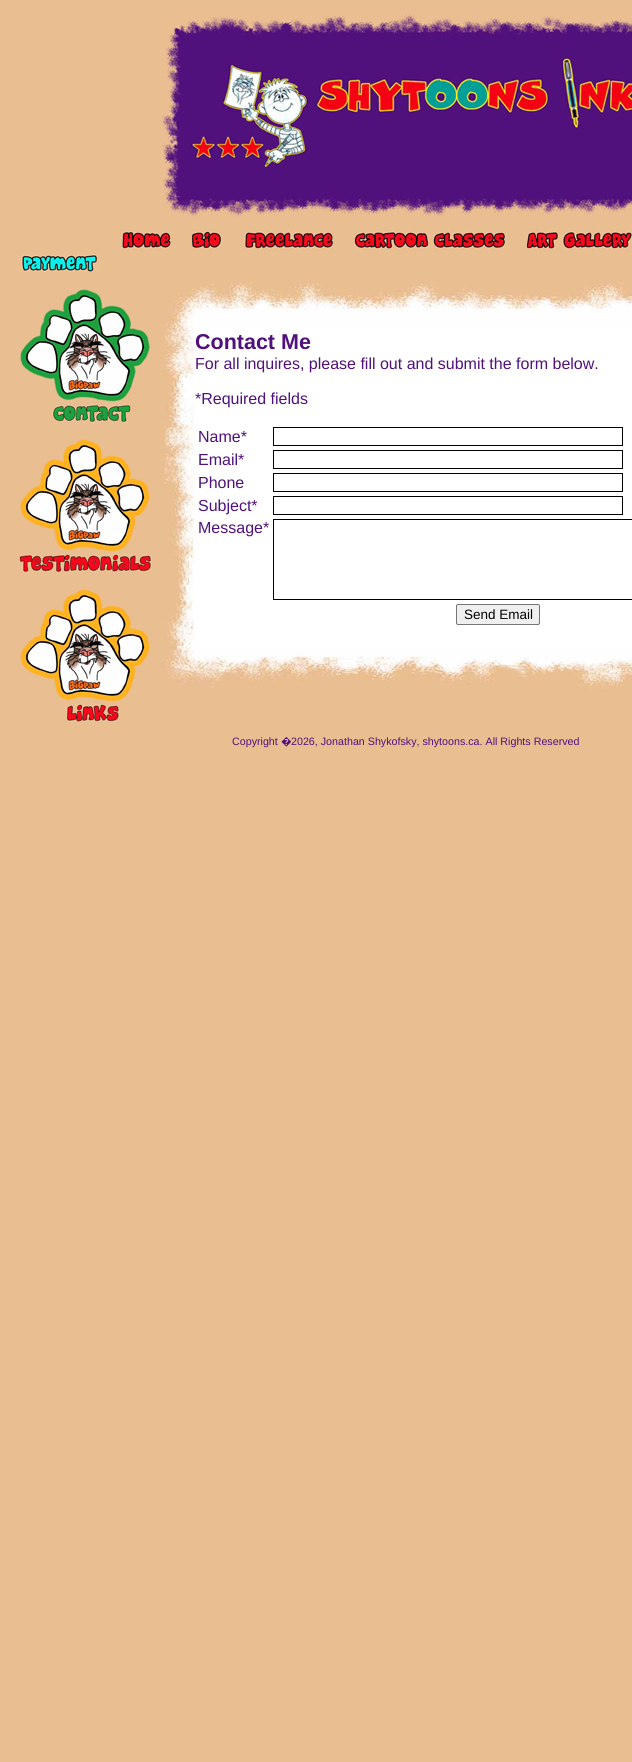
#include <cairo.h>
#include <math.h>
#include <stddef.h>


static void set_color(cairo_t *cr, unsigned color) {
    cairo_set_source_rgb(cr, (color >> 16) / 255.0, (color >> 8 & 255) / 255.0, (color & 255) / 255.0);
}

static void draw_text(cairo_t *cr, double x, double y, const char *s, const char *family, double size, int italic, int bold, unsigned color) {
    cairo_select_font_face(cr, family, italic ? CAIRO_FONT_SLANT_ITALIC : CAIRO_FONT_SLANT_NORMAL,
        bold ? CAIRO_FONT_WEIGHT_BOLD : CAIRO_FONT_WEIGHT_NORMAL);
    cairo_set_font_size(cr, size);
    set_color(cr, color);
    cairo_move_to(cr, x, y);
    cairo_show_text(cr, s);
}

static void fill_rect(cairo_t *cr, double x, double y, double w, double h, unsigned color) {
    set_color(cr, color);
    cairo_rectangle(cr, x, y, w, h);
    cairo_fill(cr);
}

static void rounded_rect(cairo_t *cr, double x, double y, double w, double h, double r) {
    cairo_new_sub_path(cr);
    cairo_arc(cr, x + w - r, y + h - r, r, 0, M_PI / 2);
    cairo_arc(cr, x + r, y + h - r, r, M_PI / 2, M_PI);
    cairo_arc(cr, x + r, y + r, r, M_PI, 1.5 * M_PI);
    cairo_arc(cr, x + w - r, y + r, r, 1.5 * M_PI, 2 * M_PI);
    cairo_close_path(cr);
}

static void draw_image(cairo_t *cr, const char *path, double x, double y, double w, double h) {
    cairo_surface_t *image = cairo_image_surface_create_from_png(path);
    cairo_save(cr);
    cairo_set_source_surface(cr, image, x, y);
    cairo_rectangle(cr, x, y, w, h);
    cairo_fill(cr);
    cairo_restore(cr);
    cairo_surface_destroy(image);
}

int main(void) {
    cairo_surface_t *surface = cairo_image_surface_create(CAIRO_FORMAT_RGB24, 632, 1762);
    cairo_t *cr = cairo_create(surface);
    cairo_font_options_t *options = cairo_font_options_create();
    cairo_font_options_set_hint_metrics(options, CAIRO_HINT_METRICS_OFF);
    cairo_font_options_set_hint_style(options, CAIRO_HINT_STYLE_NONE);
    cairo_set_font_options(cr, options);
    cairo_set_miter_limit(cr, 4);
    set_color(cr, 0xE9BE91);
    cairo_paint(cr);
    draw_image(cr, "assets/img1.png", 161, 11, 471, 211);
    draw_image(cr, "assets/img2.png", 122, 231, 49, 18);
    draw_image(cr, "assets/img3.png", 192, 231, 30, 18);
    draw_image(cr, "assets/img4.png", 243, 231, 90, 18);
    draw_image(cr, "assets/img5.png", 354, 231, 152, 18);
    draw_image(cr, "assets/img6.png", 527, 231, 105, 18);
    draw_image(cr, "assets/img7.png", 21, 254, 79, 18);
    draw_image(cr, "assets/img8.png", 19, 288, 132, 135);
    draw_image(cr, "assets/img9.png", 19, 439, 136, 134);
    draw_image(cr, "assets/img10.png", 19, 589, 131, 134);
    draw_image(cr, "assets/img11.png", 165, 282, 467, 48);
    draw_image(cr, "assets/img12.png", 165, 330, 30, 316);
    fill_rect(cr, 195, 330, 437, 316, 0xFFFFFF);
    draw_text(cr, 195, 349, "Contact Me", "Liberation Sans", 21.5, 0, 1, 0x50117C);
    draw_text(cr, 195, 369, "For all inquires, please fill out and submit the form below.", "Liberation Sans", 16, 0, 0, 0x50117C);
    draw_text(cr, 195, 404, "*Required fields", "Liberation Sans", 16, 0, 0, 0x50117C);
    draw_text(cr, 198, 442, "Name*", "Liberation Sans", 16, 0, 0, 0x50117C);
    cairo_rectangle(cr, 273.5, 427.5, 349, 18);
    set_color(cr, 0x000000);
    cairo_set_line_width(cr, 1);
    cairo_stroke(cr);
    draw_text(cr, 198, 465, "Email*", "Liberation Sans", 16, 0, 0, 0x50117C);
    cairo_rectangle(cr, 273.5, 450.5, 349, 18);
    set_color(cr, 0x000000);
    cairo_stroke(cr);
    draw_text(cr, 198, 488, "Phone", "Liberation Sans", 16, 0, 0, 0x50117C);
    cairo_rectangle(cr, 273.5, 473.5, 349, 18);
    set_color(cr, 0x000000);
    cairo_stroke(cr);
    draw_text(cr, 198, 511, "Subject*", "Liberation Sans", 16, 0, 0, 0x50117C);
    cairo_rectangle(cr, 273.5, 496.5, 349, 18);
    set_color(cr, 0x000000);
    cairo_stroke(cr);
    draw_text(cr, 198, 533, "Message*", "Liberation Sans", 16, 0, 0, 0x50117C);
    cairo_rectangle(cr, 273.5, 519.5, 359, 80);
    set_color(cr, 0x000000);
    cairo_stroke(cr);
    set_color(cr, 0xEFEFEF);
    rounded_rect(cr, 456.5, 604.5, 83, 20, 1.5);
    cairo_fill_preserve(cr);
    set_color(cr, 0x767676);
    cairo_stroke(cr);
    draw_text(cr, 464, 619, "Send Email", "Liberation Sans", 13.5, 0, 0, 0x000000);
    draw_image(cr, "assets/img13.png", 166, 646, 466, 43);
    draw_text(cr, 232, 745, "Copyright", "Liberation Sans", 10.7, 0, 0, 0x50117C);
    draw_text(cr, 281, 745, "�", "Noto Sans", 10.7, 0, 0, 0x50117C);
    draw_text(cr, 291, 745, "2026, Jonathan Shykofsky, shytoons.ca. All Rights Reserved", "Liberation Sans", 10.7, 0, 0, 0x50117C);
    cairo_surface_write_to_png(surface, "output.png");
    cairo_font_options_destroy(options);
    cairo_destroy(cr);
    cairo_surface_destroy(surface);
    return 0;
}
